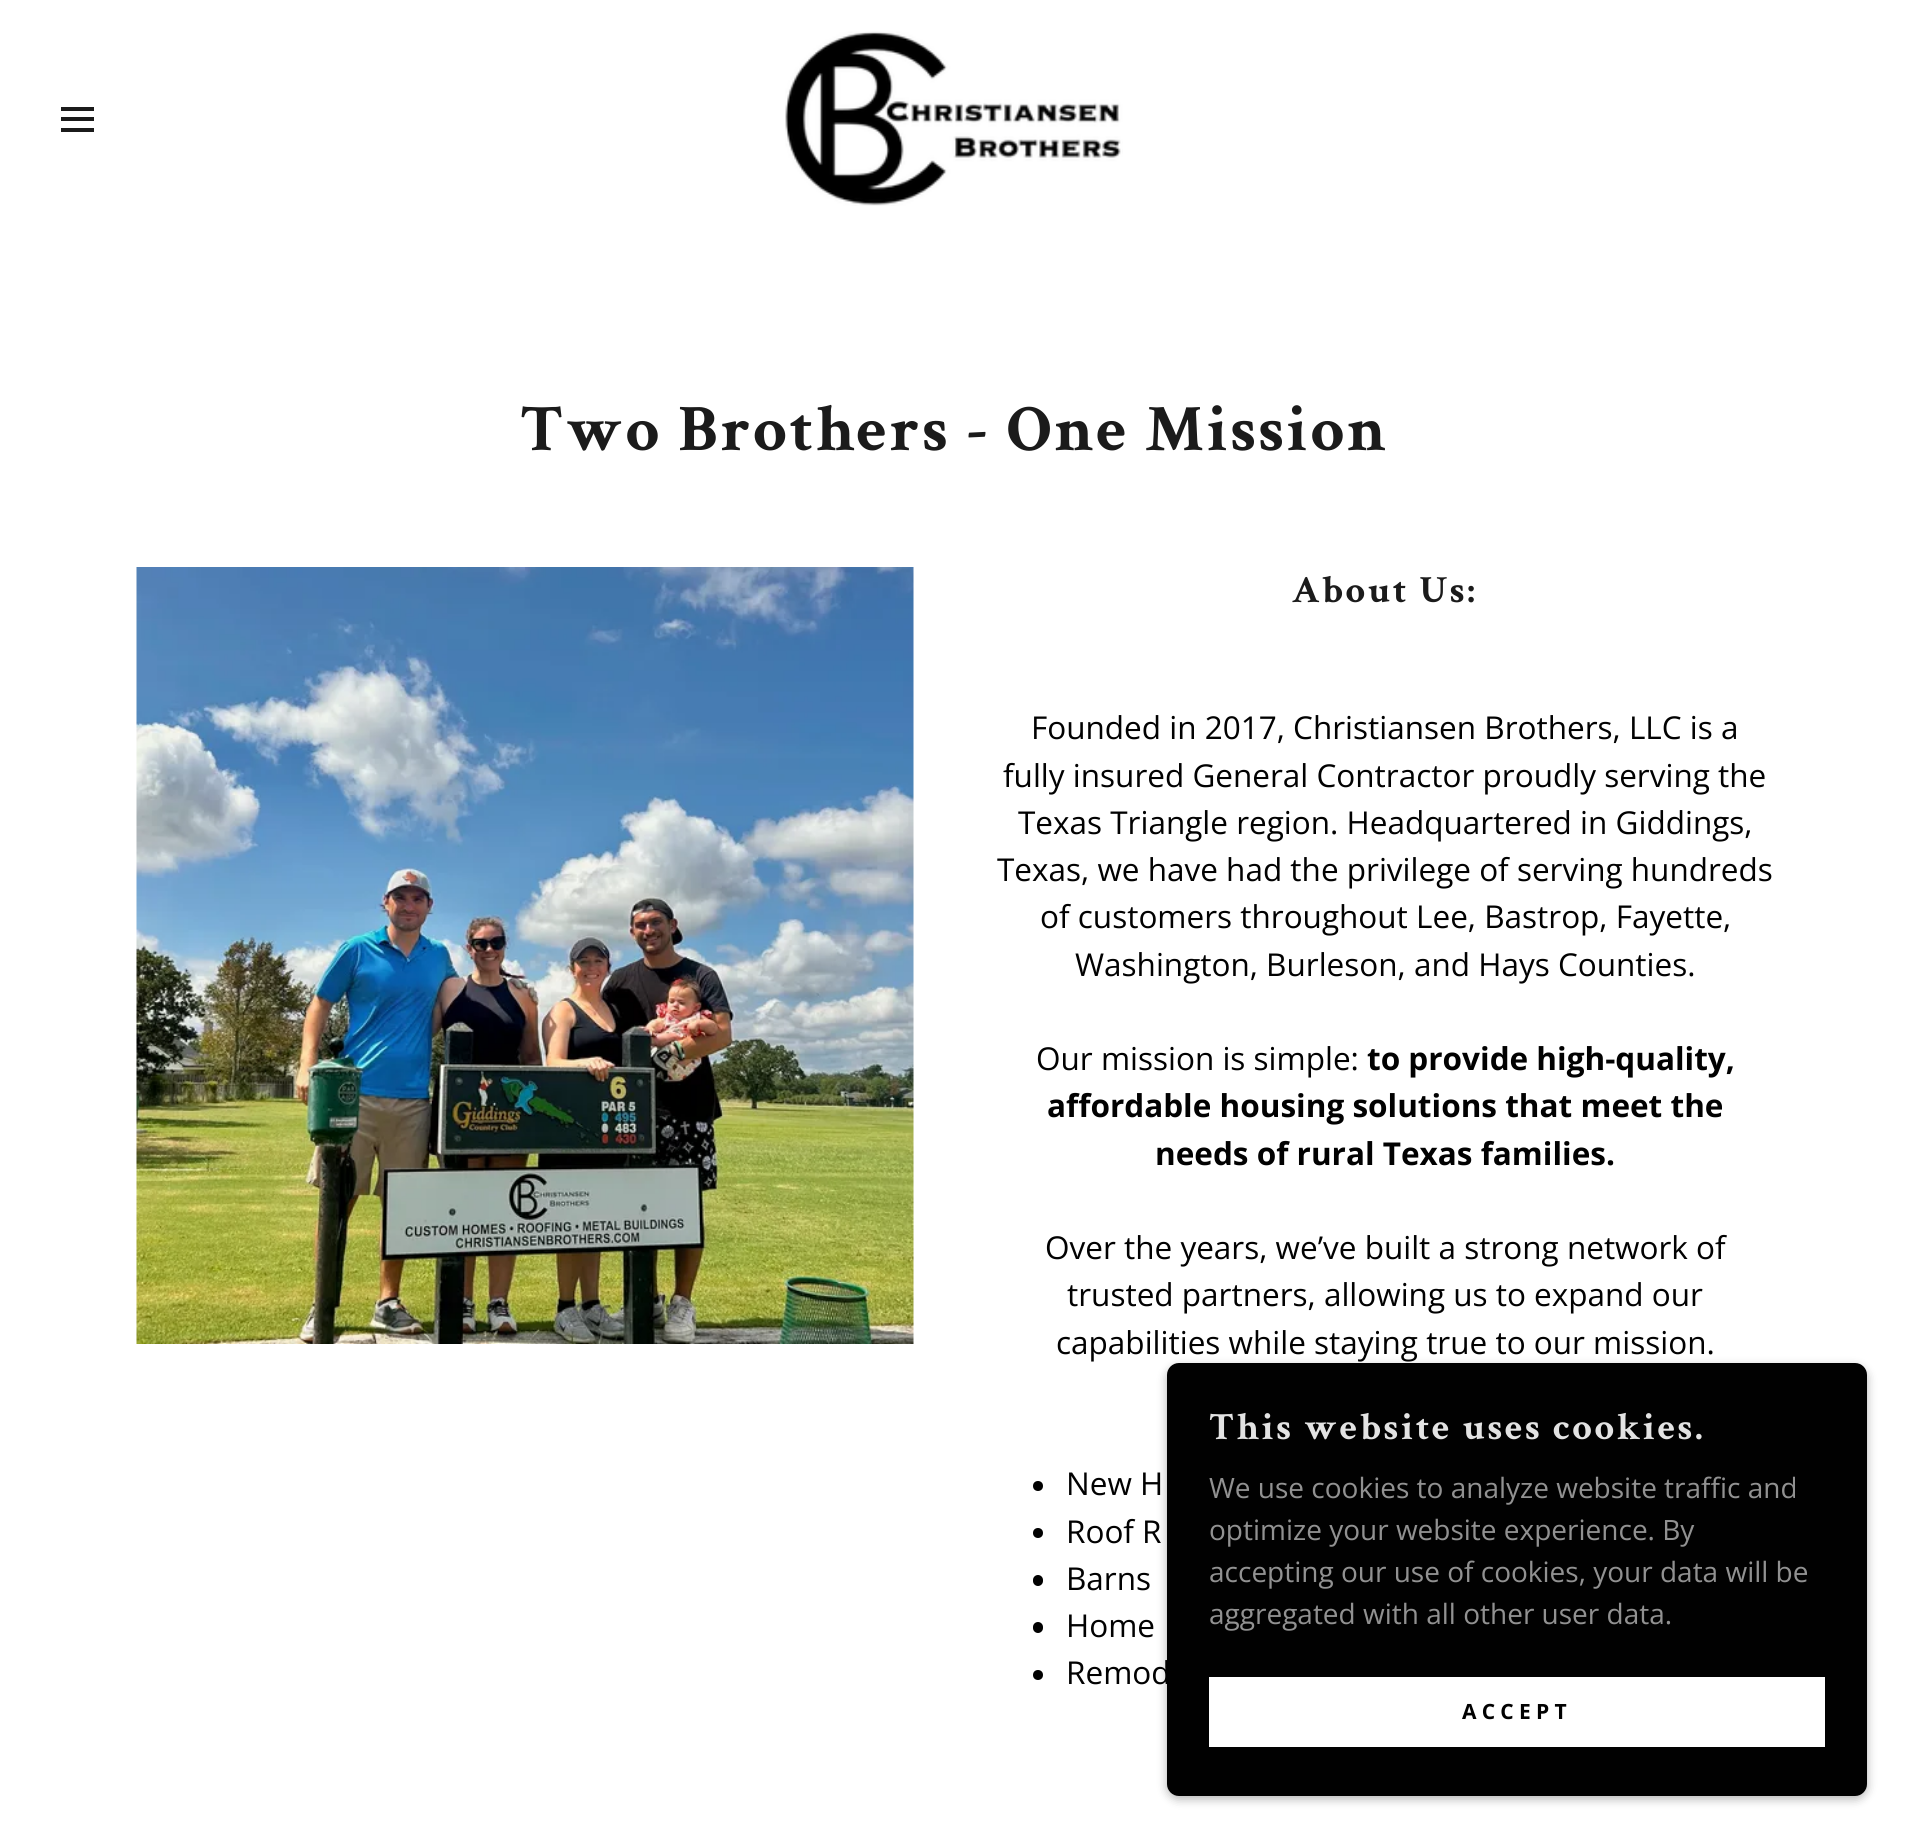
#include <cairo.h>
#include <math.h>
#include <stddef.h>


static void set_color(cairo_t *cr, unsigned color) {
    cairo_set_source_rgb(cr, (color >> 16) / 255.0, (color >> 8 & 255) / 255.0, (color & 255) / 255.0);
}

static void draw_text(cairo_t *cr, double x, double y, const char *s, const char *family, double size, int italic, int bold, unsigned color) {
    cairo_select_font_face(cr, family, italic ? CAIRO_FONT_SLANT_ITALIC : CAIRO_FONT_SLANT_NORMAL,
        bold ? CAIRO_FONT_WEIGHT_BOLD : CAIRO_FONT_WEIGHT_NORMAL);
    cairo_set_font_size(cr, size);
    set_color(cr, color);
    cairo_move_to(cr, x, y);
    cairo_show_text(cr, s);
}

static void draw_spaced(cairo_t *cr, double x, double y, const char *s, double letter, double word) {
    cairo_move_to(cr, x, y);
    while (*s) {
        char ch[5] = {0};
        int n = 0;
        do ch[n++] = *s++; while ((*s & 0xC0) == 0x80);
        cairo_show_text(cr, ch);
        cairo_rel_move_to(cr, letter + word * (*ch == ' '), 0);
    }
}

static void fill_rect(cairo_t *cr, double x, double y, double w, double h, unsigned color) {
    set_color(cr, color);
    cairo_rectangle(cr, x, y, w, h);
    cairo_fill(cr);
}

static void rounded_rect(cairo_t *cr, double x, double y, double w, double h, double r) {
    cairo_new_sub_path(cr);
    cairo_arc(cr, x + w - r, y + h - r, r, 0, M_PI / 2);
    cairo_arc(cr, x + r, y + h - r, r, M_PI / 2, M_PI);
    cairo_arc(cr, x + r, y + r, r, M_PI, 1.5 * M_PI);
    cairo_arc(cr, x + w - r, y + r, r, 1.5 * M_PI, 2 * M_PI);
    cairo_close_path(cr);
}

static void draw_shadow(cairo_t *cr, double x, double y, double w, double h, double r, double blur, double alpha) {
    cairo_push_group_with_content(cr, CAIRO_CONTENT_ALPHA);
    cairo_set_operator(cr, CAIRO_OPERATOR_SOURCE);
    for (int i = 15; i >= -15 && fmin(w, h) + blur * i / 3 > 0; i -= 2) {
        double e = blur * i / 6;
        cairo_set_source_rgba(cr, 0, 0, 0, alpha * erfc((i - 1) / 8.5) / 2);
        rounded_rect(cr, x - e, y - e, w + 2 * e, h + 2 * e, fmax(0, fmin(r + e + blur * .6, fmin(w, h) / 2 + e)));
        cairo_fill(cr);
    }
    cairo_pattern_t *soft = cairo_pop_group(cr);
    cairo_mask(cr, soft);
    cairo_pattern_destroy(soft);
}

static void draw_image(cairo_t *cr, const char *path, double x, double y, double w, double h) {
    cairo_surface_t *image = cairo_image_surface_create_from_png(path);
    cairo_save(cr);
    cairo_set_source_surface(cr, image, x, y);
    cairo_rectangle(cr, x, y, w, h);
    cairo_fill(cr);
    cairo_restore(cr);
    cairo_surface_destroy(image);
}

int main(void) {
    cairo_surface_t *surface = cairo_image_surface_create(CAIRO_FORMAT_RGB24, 1908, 1837);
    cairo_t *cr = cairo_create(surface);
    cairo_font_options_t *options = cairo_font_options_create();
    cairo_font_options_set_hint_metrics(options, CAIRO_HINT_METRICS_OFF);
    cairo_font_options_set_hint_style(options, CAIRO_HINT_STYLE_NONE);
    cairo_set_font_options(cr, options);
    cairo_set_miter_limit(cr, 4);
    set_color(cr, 0xFFFFFF);
    cairo_paint(cr);
    fill_rect(cr, 61, 107, 33, 4, 0x1B1B1B);
    fill_rect(cr, 61, 117, 33, 4, 0x1B1B1B);
    fill_rect(cr, 61, 128, 33, 4, 0x1B1B1B);
    draw_image(cr, "assets/img1.png", 785, 31, 338, 175);
    cairo_select_font_face(cr, "Crimson Text", CAIRO_FONT_SLANT_NORMAL, CAIRO_FONT_WEIGHT_BOLD);
    cairo_set_font_size(cr, 66.5);
    draw_spaced(cr, 520, 450, "Two Brothers - One Mission", 2.6, 0);
    draw_image(cr, "assets/img2.png", 136, 567, 778, 777);
    cairo_set_font_size(cr, 38.5);
    draw_spaced(cr, 1292, 602, "About Us:", 2.6, 0);
    draw_text(cr, 1031, 739, "Founded in 2017, Christiansen Brothers, LLC is a", "Open Sans", 31.5, 0, 0, 0x010101);
    draw_text(cr, 1003, 787, "fully insured General Contractor proudly serving the", "Open Sans", 31.5, 0, 0, 0x010101);
    draw_text(cr, 1018, 834, "Texas Triangle region. Headquartered in Giddings,", "Open Sans", 31.5, 0, 0, 0x010101);
    draw_text(cr, 997, 881, "Texas, we have had the privilege of serving hundreds", "Open Sans", 31.5, 0, 0, 0x010101);
    draw_text(cr, 1040, 928, "of customers throughout Lee, Bastrop, Fayette,", "Open Sans", 31.5, 0, 0, 0x010101);
    draw_text(cr, 1075, 976, "Washington, Burleson, and Hays Counties.", "Open Sans", 31.5, 0, 0, 0x010101);
    draw_text(cr, 1036, 1070, "Our mission is simple:", "Open Sans", 31.5, 0, 0, 0x010101);
    draw_text(cr, 1367, 1070, "to provide high-quality,", "Open Sans", 31.5, 0, 1, 0x010101);
    draw_text(cr, 1047, 1117, "affordable housing solutions that meet the", "Open Sans", 31.5, 0, 1, 0x010101);
    draw_text(cr, 1155, 1165, "needs of rural Texas families.", "Open Sans", 31.5, 0, 1, 0x010101);
    draw_text(cr, 1045, 1259, "Over the years, we’ve built a strong network of", "Open Sans", 31.5, 0, 0, 0x010101);
    draw_text(cr, 1067, 1306, "trusted partners, allowing us to expand our", "Open Sans", 31.5, 0, 0, 0x010101);
    draw_text(cr, 1056, 1354, "capabilities while staying true to our mission.", "Open Sans", 31.5, 0, 0, 0x010101);
    cairo_new_path(cr);
    cairo_arc(cr, 1038, 1486, 5, 0, 2 * M_PI);
    cairo_fill(cr);
    draw_text(cr, 1066, 1495, "New H", "Open Sans", 31.5, 0, 0, 0x010101);
    cairo_new_path(cr);
    cairo_arc(cr, 1038, 1533, 5, 0, 2 * M_PI);
    cairo_fill(cr);
    draw_text(cr, 1066, 1543, "Roof R", "Open Sans", 31.5, 0, 0, 0x010101);
    rounded_rect(cr, 1033, 1575, 10, 11, 5);
    cairo_fill(cr);
    draw_text(cr, 1066, 1590, "Barns", "Open Sans", 31.5, 0, 0, 0x010101);
    rounded_rect(cr, 1033, 1622, 10, 11, 5);
    cairo_fill(cr);
    draw_text(cr, 1066, 1637, "Home", "Open Sans", 31.5, 0, 0, 0x010101);
    cairo_new_path(cr);
    cairo_arc(cr, 1038, 1675, 5, 0, 2 * M_PI);
    cairo_fill(cr);
    draw_text(cr, 1066, 1684, "Remod", "Open Sans", 31.5, 0, 0, 0x010101);
    set_color(cr, 0x000000);
    draw_shadow(cr, 1167, 1367, 700, 432, 12, 5, 0.3);
    set_color(cr, 0x010101);
    rounded_rect(cr, 1167, 1363, 700, 433, 12);
    cairo_fill(cr);
    cairo_select_font_face(cr, "Crimson Text", CAIRO_FONT_SLANT_NORMAL, CAIRO_FONT_WEIGHT_BOLD);
    cairo_set_font_size(cr, 38.5);
    set_color(cr, 0xE3E3E3);
    draw_spaced(cr, 1209, 1439, "This website uses cookies.", 2.6, 0);
    draw_text(cr, 1209, 1498, "We use cookies to analyze website traffic and", "Open Sans", 28, 0, 0, 0x919191);
    draw_text(cr, 1209, 1540, "optimize your website experience. By", "Open Sans", 28, 0, 0, 0x919191);
    draw_text(cr, 1209, 1582, "accepting our use of cookies, your data will be", "Open Sans", 28, 0, 0, 0x919191);
    draw_text(cr, 1209, 1624, "aggregated with all other user data.", "Open Sans", 28, 0, 0, 0x919191);
    fill_rect(cr, 1209, 1677, 616, 70, 0xFFFFFF);
    cairo_select_font_face(cr, "Open Sans", CAIRO_FONT_SLANT_NORMAL, CAIRO_FONT_WEIGHT_BOLD);
    cairo_set_font_size(cr, 21);
    set_color(cr, 0x010101);
    draw_spaced(cr, 1462, 1719, "ACCEPT", 5.25, 0);
    cairo_surface_write_to_png(surface, "output.png");
    cairo_font_options_destroy(options);
    cairo_destroy(cr);
    cairo_surface_destroy(surface);
    return 0;
}
